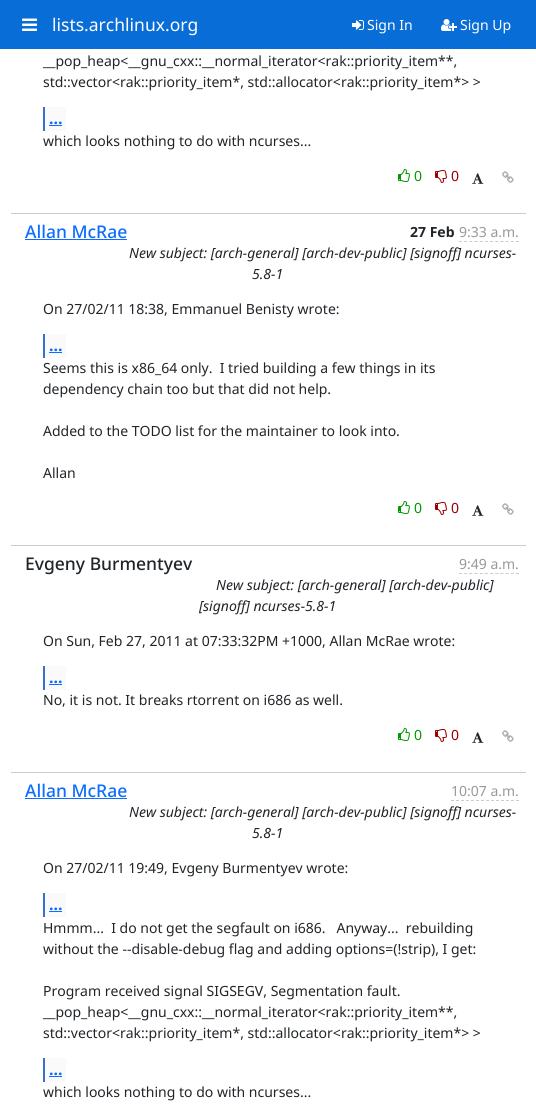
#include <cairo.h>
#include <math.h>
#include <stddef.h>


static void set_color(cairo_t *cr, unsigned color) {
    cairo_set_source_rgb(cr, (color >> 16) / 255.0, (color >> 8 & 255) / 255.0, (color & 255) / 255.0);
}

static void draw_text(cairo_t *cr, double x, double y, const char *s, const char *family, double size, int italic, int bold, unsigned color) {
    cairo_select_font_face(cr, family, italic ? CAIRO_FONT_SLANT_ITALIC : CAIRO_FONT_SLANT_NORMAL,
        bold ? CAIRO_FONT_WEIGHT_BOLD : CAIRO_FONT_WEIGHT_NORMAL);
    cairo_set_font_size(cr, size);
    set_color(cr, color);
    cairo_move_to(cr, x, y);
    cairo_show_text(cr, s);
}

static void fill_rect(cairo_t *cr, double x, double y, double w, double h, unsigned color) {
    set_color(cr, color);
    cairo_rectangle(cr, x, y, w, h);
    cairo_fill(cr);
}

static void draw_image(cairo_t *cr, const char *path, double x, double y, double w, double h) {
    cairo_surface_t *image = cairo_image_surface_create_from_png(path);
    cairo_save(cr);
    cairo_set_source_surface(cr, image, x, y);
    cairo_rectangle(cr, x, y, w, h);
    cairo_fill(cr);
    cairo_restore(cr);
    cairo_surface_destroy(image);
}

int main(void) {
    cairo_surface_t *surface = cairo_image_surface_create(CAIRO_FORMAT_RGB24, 536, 1113);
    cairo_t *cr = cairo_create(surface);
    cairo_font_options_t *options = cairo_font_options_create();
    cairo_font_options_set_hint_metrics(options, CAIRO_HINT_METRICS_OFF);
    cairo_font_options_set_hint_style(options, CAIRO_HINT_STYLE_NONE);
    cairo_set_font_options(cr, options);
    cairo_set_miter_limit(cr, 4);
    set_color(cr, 0xFFFFFF);
    cairo_paint(cr);
    fill_rect(cr, 0, 0, 536, 49, 0x086DD7);
    draw_image(cr, "assets/img1.png", 22, 18, 15, 13);
    draw_text(cr, 52, 31, "lists.archlinux.org", "Noto Sans", 17.5, 0, 0, 0xFFFFFF);
    draw_image(cr, "assets/img2.png", 352, 20, 12, 10);
    draw_text(cr, 367, 30, "Sign In", "Noto Sans", 14, 0, 0, 0xFFFFFF);
    draw_image(cr, "assets/img3.png", 441, 19, 16, 12);
    draw_text(cr, 460, 30, "Sign Up", "Noto Sans", 14, 0, 0, 0xFFFFFF);
    draw_text(cr, 43, 66, "__pop_heap<__gnu_cxx::__normal_iterator<rak::priority_item**,", "Noto Sans", 14, 0, 0, 0x212529);
    draw_text(cr, 43, 87, "std::vector<rak::priority_item*, std::allocator<rak::priority_item*> >", "Noto Sans", 14, 0, 0, 0x212529);
    fill_rect(cr, 45, 107, 21, 24, 0xFAFAFA);
    draw_text(cr, 49, 124, "...", "Noto Sans", 16, 0, 1, 0x0D6EFD);
    fill_rect(cr, 43, 107, 2, 24, 0x3771C8);
    fill_rect(cr, 49, 125, 13, 1, 0x0D6EFD);
    draw_text(cr, 43, 146, "which looks nothing to do with ncurses...", "Noto Sans", 14, 0, 0, 0x212529);
    draw_image(cr, "assets/img4.png", 398, 169, 12, 13);
    draw_text(cr, 414, 181, "0", "Noto Sans", 14, 0, 0, 0x009900);
    draw_image(cr, "assets/img5.png", 435, 170, 12, 13);
    draw_text(cr, 451, 181, "0", "Noto Sans", 14, 0, 0, 0x990000);
    draw_image(cr, "assets/img6.png", 472, 173, 12, 11);
    draw_image(cr, "assets/img7.png", 502, 171, 12, 12);
    fill_rect(cr, 11, 213, 515, 1, 0xCCCCCC);
    draw_text(cr, 25, 238, "Allan McRae", "Noto Sans Medium", 17.5, 0, 0, 0x0D6EFD);
    fill_rect(cr, 25, 239, 102, 1, 0x0D6EFD);
    draw_text(cr, 410, 237, "27 Feb", "Noto Sans", 14, 0, 1, 0x212529);
    draw_text(cr, 459, 237, "9:33 a.m.", "Noto Sans", 14, 0, 0, 0x999999);
    cairo_new_path(cr);
    cairo_move_to(cr, 459, 241.5);
    cairo_line_to(cr, 519, 241.5);
    set_color(cr, 0xCCCCCC);
    cairo_set_line_width(cr, 1);
    cairo_set_dash(cr, (double[]){3, 2.18}, 2, 0);
    cairo_stroke(cr);
    draw_text(cr, 129, 258, "New subject: [arch-general] [arch-dev-public] [signoff] ncurses-", "Noto Sans", 14, 1, 0, 0x212529);
    draw_text(cr, 252, 279, "5.8-1", "Noto Sans", 14, 1, 0, 0x212529);
    draw_text(cr, 43, 314, "On 27/02/11 18:38, Emmanuel Benisty wrote:", "Noto Sans", 14, 0, 0, 0x212529);
    fill_rect(cr, 45, 334, 21, 24, 0xFAFAFA);
    draw_text(cr, 49, 351, "...", "Noto Sans", 16, 0, 1, 0x0D6EFD);
    fill_rect(cr, 43, 334, 2, 24, 0x3771C8);
    fill_rect(cr, 49, 352, 13, 1, 0x0D6EFD);
    draw_text(cr, 43, 373, "Seems this is x86_64 only.  I tried building a few things in its", "Noto Sans", 14, 0, 0, 0x212529);
    draw_text(cr, 43, 394, "dependency chain too but that did not help.", "Noto Sans", 14, 0, 0, 0x212529);
    draw_text(cr, 43, 436, "Added to the TODO list for the maintainer to look into.", "Noto Sans", 14, 0, 0, 0x212529);
    draw_text(cr, 43, 478, "Allan", "Noto Sans", 14, 0, 0, 0x212529);
    draw_image(cr, "assets/img4.png", 398, 501, 12, 13);
    draw_text(cr, 414, 513, "0", "Noto Sans", 14, 0, 0, 0x009900);
    draw_image(cr, "assets/img5.png", 435, 502, 12, 13);
    draw_text(cr, 451, 513, "0", "Noto Sans", 14, 0, 0, 0x990000);
    draw_image(cr, "assets/img6.png", 472, 505, 12, 11);
    draw_image(cr, "assets/img7.png", 502, 503, 12, 12);
    fill_rect(cr, 11, 545, 515, 1, 0xCCCCCC);
    draw_text(cr, 25, 570, "Evgeny Burmentyev", "Noto Sans Medium", 17.5, 0, 0, 0x212529);
    draw_text(cr, 459, 569, "9:49 a.m.", "Noto Sans", 14, 0, 0, 0x999999);
    cairo_new_path(cr);
    cairo_move_to(cr, 459, 573.5);
    cairo_line_to(cr, 519, 573.5);
    set_color(cr, 0xCCCCCC);
    cairo_stroke(cr);
    draw_text(cr, 216, 590, "New subject: [arch-general] [arch-dev-public]", "Noto Sans", 14, 1, 0, 0x212529);
    draw_text(cr, 199, 611, "[signoff] ncurses-5.8-1", "Noto Sans", 14, 1, 0, 0x212529);
    draw_text(cr, 43, 646, "On Sun, Feb 27, 2011 at 07:33:32PM +1000, Allan McRae wrote:", "Noto Sans", 14, 0, 0, 0x212529);
    fill_rect(cr, 45, 666, 21, 24, 0xFAFAFA);
    draw_text(cr, 49, 683, "...", "Noto Sans", 16, 0, 1, 0x0D6EFD);
    fill_rect(cr, 43, 666, 2, 24, 0x3771C8);
    fill_rect(cr, 49, 684, 13, 1, 0x0D6EFD);
    draw_text(cr, 43, 705, "No, it is not. It breaks rtorrent on i686 as well.", "Noto Sans", 14, 0, 0, 0x212529);
    draw_image(cr, "assets/img4.png", 398, 728, 12, 13);
    draw_text(cr, 414, 740, "0", "Noto Sans", 14, 0, 0, 0x009900);
    draw_image(cr, "assets/img5.png", 435, 729, 12, 13);
    draw_text(cr, 451, 740, "0", "Noto Sans", 14, 0, 0, 0x990000);
    draw_image(cr, "assets/img6.png", 472, 732, 12, 11);
    draw_image(cr, "assets/img7.png", 502, 730, 12, 12);
    fill_rect(cr, 11, 772, 515, 1, 0xCCCCCC);
    draw_text(cr, 25, 797, "Allan McRae", "Noto Sans Medium", 17.5, 0, 0, 0x0D6EFD);
    fill_rect(cr, 25, 798, 102, 1, 0x0D6EFD);
    draw_text(cr, 451, 796, "10:07 a.m.", "Noto Sans", 14, 0, 0, 0x999999);
    cairo_new_path(cr);
    cairo_move_to(cr, 451, 800.5);
    cairo_line_to(cr, 519, 800.5);
    set_color(cr, 0xCCCCCC);
    cairo_set_dash(cr, (double[]){3, 2}, 2, 0);
    cairo_stroke(cr);
    draw_text(cr, 129, 817, "New subject: [arch-general] [arch-dev-public] [signoff] ncurses-", "Noto Sans", 14, 1, 0, 0x212529);
    draw_text(cr, 252, 838, "5.8-1", "Noto Sans", 14, 1, 0, 0x212529);
    draw_text(cr, 43, 873, "On 27/02/11 19:49, Evgeny Burmentyev wrote:", "Noto Sans", 14, 0, 0, 0x212529);
    fill_rect(cr, 45, 893, 21, 24, 0xFAFAFA);
    draw_text(cr, 49, 910, "...", "Noto Sans", 16, 0, 1, 0x0D6EFD);
    fill_rect(cr, 43, 893, 2, 24, 0x3771C8);
    fill_rect(cr, 49, 911, 13, 1, 0x0D6EFD);
    draw_text(cr, 43, 933, "Hmmm...  I do not get the segfault on i686.   Anyway...  rebuilding", "Noto Sans", 14, 0, 0, 0x212529);
    draw_text(cr, 43, 954, "without the --disable-debug flag and adding options=(!strip), I get:", "Noto Sans", 14, 0, 0, 0x212529);
    draw_text(cr, 43, 996, "Program received signal SIGSEGV, Segmentation fault.", "Noto Sans", 14, 0, 0, 0x212529);
    draw_text(cr, 43, 1017, "__pop_heap<__gnu_cxx::__normal_iterator<rak::priority_item**,", "Noto Sans", 14, 0, 0, 0x212529);
    draw_text(cr, 43, 1038, "std::vector<rak::priority_item*, std::allocator<rak::priority_item*> >", "Noto Sans", 14, 0, 0, 0x212529);
    fill_rect(cr, 45, 1058, 21, 24, 0xFAFAFA);
    draw_text(cr, 49, 1075, "...", "Noto Sans", 16, 0, 1, 0x0D6EFD);
    fill_rect(cr, 43, 1058, 2, 24, 0x3771C8);
    fill_rect(cr, 49, 1076, 13, 1, 0x0D6EFD);
    draw_text(cr, 43, 1097, "which looks nothing to do with ncurses...", "Noto Sans", 14, 0, 0, 0x212529);
    cairo_surface_write_to_png(surface, "output.png");
    cairo_font_options_destroy(options);
    cairo_destroy(cr);
    cairo_surface_destroy(surface);
    return 0;
}
